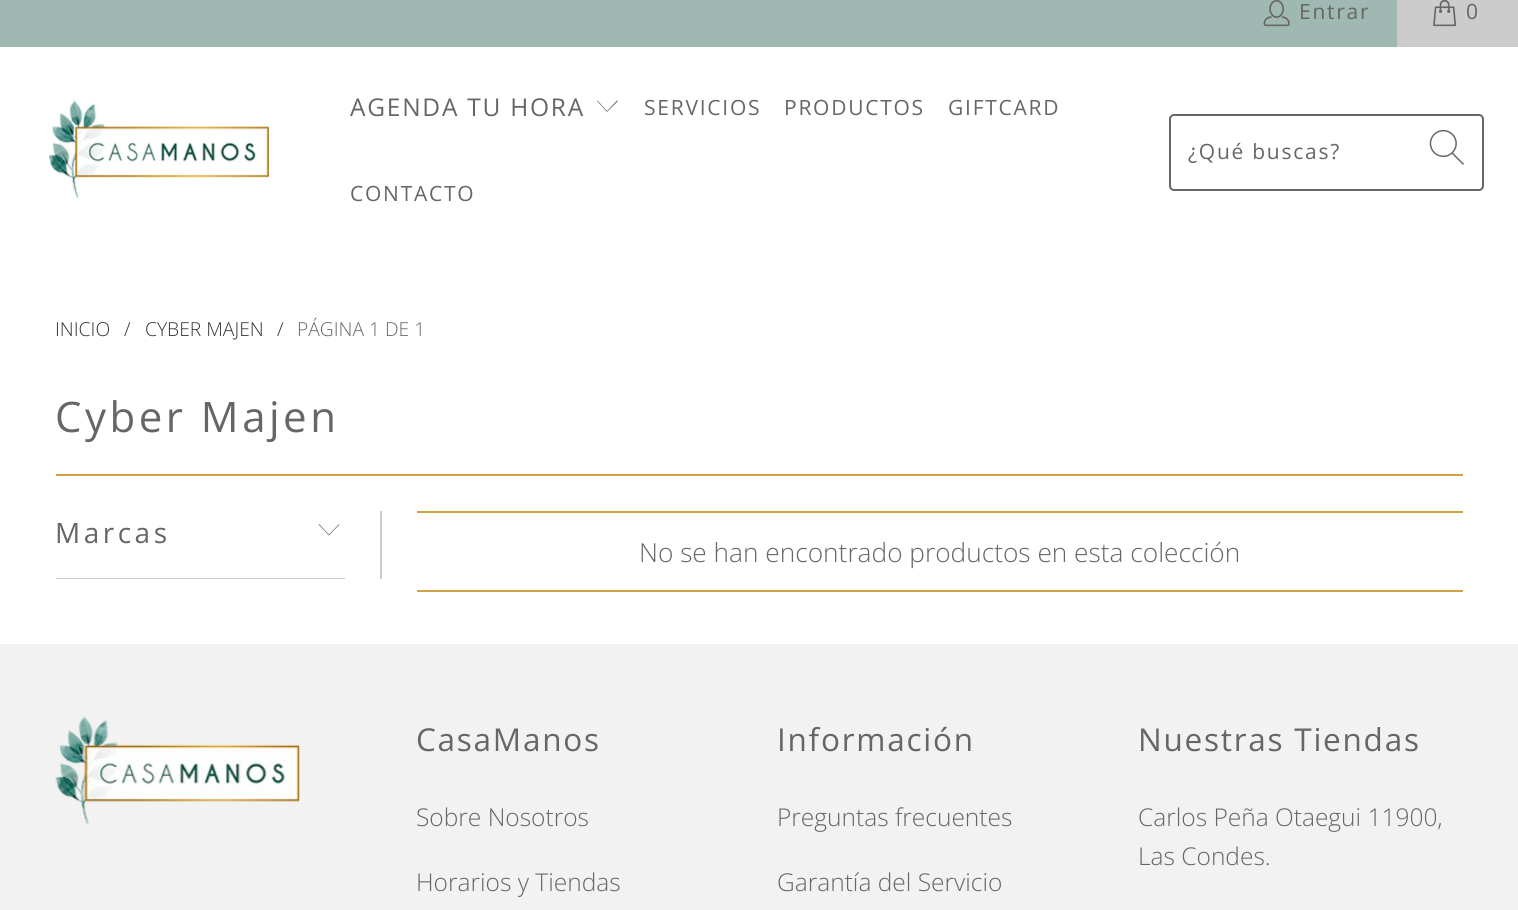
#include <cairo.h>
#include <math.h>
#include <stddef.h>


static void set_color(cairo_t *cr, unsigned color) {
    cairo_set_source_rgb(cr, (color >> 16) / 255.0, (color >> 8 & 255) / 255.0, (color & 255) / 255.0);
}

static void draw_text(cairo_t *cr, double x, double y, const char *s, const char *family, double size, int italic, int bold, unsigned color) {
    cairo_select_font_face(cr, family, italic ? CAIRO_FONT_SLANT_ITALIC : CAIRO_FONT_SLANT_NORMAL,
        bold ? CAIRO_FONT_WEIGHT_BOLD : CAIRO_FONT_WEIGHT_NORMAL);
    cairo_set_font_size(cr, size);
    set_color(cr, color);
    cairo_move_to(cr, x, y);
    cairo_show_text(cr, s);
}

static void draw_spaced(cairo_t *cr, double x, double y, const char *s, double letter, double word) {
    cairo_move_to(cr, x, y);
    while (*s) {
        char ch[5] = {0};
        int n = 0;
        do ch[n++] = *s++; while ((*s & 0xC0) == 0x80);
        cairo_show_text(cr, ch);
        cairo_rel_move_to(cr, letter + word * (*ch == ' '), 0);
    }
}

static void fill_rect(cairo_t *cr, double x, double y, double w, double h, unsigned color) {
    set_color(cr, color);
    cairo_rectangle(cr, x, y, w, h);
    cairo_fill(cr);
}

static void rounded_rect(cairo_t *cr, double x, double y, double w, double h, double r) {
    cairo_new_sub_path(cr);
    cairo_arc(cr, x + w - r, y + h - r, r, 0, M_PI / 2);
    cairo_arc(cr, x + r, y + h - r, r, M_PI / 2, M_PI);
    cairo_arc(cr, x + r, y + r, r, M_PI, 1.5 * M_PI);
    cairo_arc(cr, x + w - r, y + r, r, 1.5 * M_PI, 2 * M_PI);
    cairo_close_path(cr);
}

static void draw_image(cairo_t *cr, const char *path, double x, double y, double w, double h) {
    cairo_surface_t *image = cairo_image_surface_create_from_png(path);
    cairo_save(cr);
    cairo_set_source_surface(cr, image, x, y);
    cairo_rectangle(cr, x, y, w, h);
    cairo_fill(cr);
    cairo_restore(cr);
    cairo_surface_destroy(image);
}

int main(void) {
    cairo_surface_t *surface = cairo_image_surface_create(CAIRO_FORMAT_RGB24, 1518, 910);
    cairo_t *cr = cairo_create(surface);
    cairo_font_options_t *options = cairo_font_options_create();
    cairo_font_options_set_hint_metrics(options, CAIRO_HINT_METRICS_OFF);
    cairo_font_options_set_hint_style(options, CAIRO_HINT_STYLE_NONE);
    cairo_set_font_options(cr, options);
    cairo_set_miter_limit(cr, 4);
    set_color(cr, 0xFFFFFF);
    cairo_paint(cr);
    fill_rect(cr, 0, 0, 1397, 47, 0xA0B8B2);
    draw_image(cr, "assets/img1.png", 1263, 0, 27, 27);
    cairo_select_font_face(cr, "Open Sans", CAIRO_FONT_SLANT_NORMAL, CAIRO_FONT_WEIGHT_NORMAL);
    cairo_set_font_size(cr, 21);
    set_color(cr, 0x666666);
    draw_spaced(cr, 1299, 19, "Entrar", 1.75, 0);
    fill_rect(cr, 1397, 0, 121, 47, 0xCCCCCC);
    draw_image(cr, "assets/img2.png", 1433, 0, 24, 27);
    set_color(cr, 0x666666);
    draw_spaced(cr, 1466, 19, "0", 1.75, 0);
    draw_image(cr, "assets/img3.png", 49, 99, 221, 100);
    cairo_set_font_size(cr, 24.5);
    draw_spaced(cr, 350, 116, "AGENDA TU HORA", 1.75, 0);
    cairo_new_path(cr);
    cairo_move_to(cr, 607, 112);
    cairo_line_to(cr, 597, 101);
    cairo_line_to(cr, 597.5, 100.5);
    cairo_line_to(cr, 607, 111);
    cairo_line_to(cr, 617, 100.5);
    cairo_line_to(cr, 618, 101);
    cairo_close_path(cr);
    cairo_fill(cr);
    cairo_set_font_size(cr, 21);
    draw_spaced(cr, 644, 115, "SERVICIOS", 1.75, 0);
    draw_spaced(cr, 784, 115, "PRODUCTOS", 1.75, 0);
    draw_spaced(cr, 948, 115, "GIFTCARD", 1.75, 0);
    draw_spaced(cr, 350, 201, "CONTACTO", 1.75, 0);
    rounded_rect(cr, 1170, 115, 313, 75, 4);
    cairo_stroke(cr);
    draw_spaced(cr, 1188, 159, "¿Qué buscas?", 1.75, 0);
    draw_image(cr, "assets/img4.png", 1429, 129, 35, 36);
    draw_text(cr, 55, 336, "INICIO", "Open Sans Light", 19.25, 0, 0, 0x333333);
    draw_text(cr, 124, 336, "/", "Open Sans Light", 19.25, 0, 0, 0x333333);
    draw_text(cr, 145, 336, "CYBER MAJEN", "Open Sans Light", 19.25, 0, 0, 0x333333);
    draw_text(cr, 277, 336, "/", "Open Sans Light", 19.25, 0, 0, 0x333333);
    draw_text(cr, 297, 336, "PÁGINA 1 DE 1", "Open Sans Light", 19.25, 0, 0, 0x666666);
    cairo_select_font_face(cr, "Open Sans", CAIRO_FONT_SLANT_NORMAL, CAIRO_FONT_WEIGHT_NORMAL);
    cairo_set_font_size(cr, 42);
    draw_spaced(cr, 55, 432, "Cyber Majen", 3.5, 0);
    fill_rect(cr, 56, 474, 1407, 2, 0xD1A143);
    fill_rect(cr, 380, 511, 2, 68, 0xCCCCCC);
    cairo_set_font_size(cr, 28);
    set_color(cr, 0x666666);
    draw_spaced(cr, 55, 543, "Marcas", 3.5, 0);
    cairo_new_path(cr);
    cairo_move_to(cr, 329, 535.5);
    cairo_line_to(cr, 318.5, 524.5);
    cairo_line_to(cr, 319, 524);
    cairo_line_to(cr, 329, 534.5);
    cairo_line_to(cr, 339, 524);
    cairo_line_to(cr, 339.5, 524.5);
    cairo_close_path(cr);
    cairo_fill(cr);
    fill_rect(cr, 56, 578, 289, 1, 0xCCCCCC);
    fill_rect(cr, 417, 511, 1046, 2, 0xD1A143);
    fill_rect(cr, 417, 590, 1046, 2, 0xD1A143);
    draw_text(cr, 639, 562, "No se han encontrado productos en esta colección", "Open Sans Light", 26.25, 0, 0, 0x666666);
    fill_rect(cr, 0, 644, 1518, 266, 0xF2F2F2);
    draw_image(cr, "assets/img5.png", 55, 716, 245, 109);
    cairo_select_font_face(cr, "Open Sans", CAIRO_FONT_SLANT_NORMAL, CAIRO_FONT_WEIGHT_NORMAL);
    cairo_set_font_size(cr, 31.5);
    set_color(cr, 0x666666);
    draw_spaced(cr, 416, 751, "CasaManos", 1.75, 0);
    draw_text(cr, 416, 826, "Sobre Nosotros", "Open Sans Light", 24.5, 0, 0, 0x666666);
    draw_text(cr, 416, 891, "Horarios y Tiendas", "Open Sans Light", 24.5, 0, 0, 0x666666);
    cairo_select_font_face(cr, "Open Sans", CAIRO_FONT_SLANT_NORMAL, CAIRO_FONT_WEIGHT_NORMAL);
    cairo_set_font_size(cr, 31.5);
    draw_spaced(cr, 777, 751, "Información", 1.75, 0);
    draw_text(cr, 777, 826, "Preguntas frecuentes", "Open Sans Light", 24.5, 0, 0, 0x666666);
    draw_text(cr, 777, 891, "Garantía del Servicio", "Open Sans Light", 24.5, 0, 0, 0x666666);
    cairo_select_font_face(cr, "Open Sans", CAIRO_FONT_SLANT_NORMAL, CAIRO_FONT_WEIGHT_NORMAL);
    cairo_set_font_size(cr, 31.5);
    draw_spaced(cr, 1138, 751, "Nuestras Tiendas", 1.75, 0);
    draw_text(cr, 1138, 826, "Carlos Peña Otaegui 11900,", "Open Sans Light", 24.5, 0, 0, 0x666666);
    draw_text(cr, 1138, 865, "Las Condes.", "Open Sans Light", 24.5, 0, 0, 0x666666);
    cairo_surface_write_to_png(surface, "output.png");
    cairo_font_options_destroy(options);
    cairo_destroy(cr);
    cairo_surface_destroy(surface);
    return 0;
}
